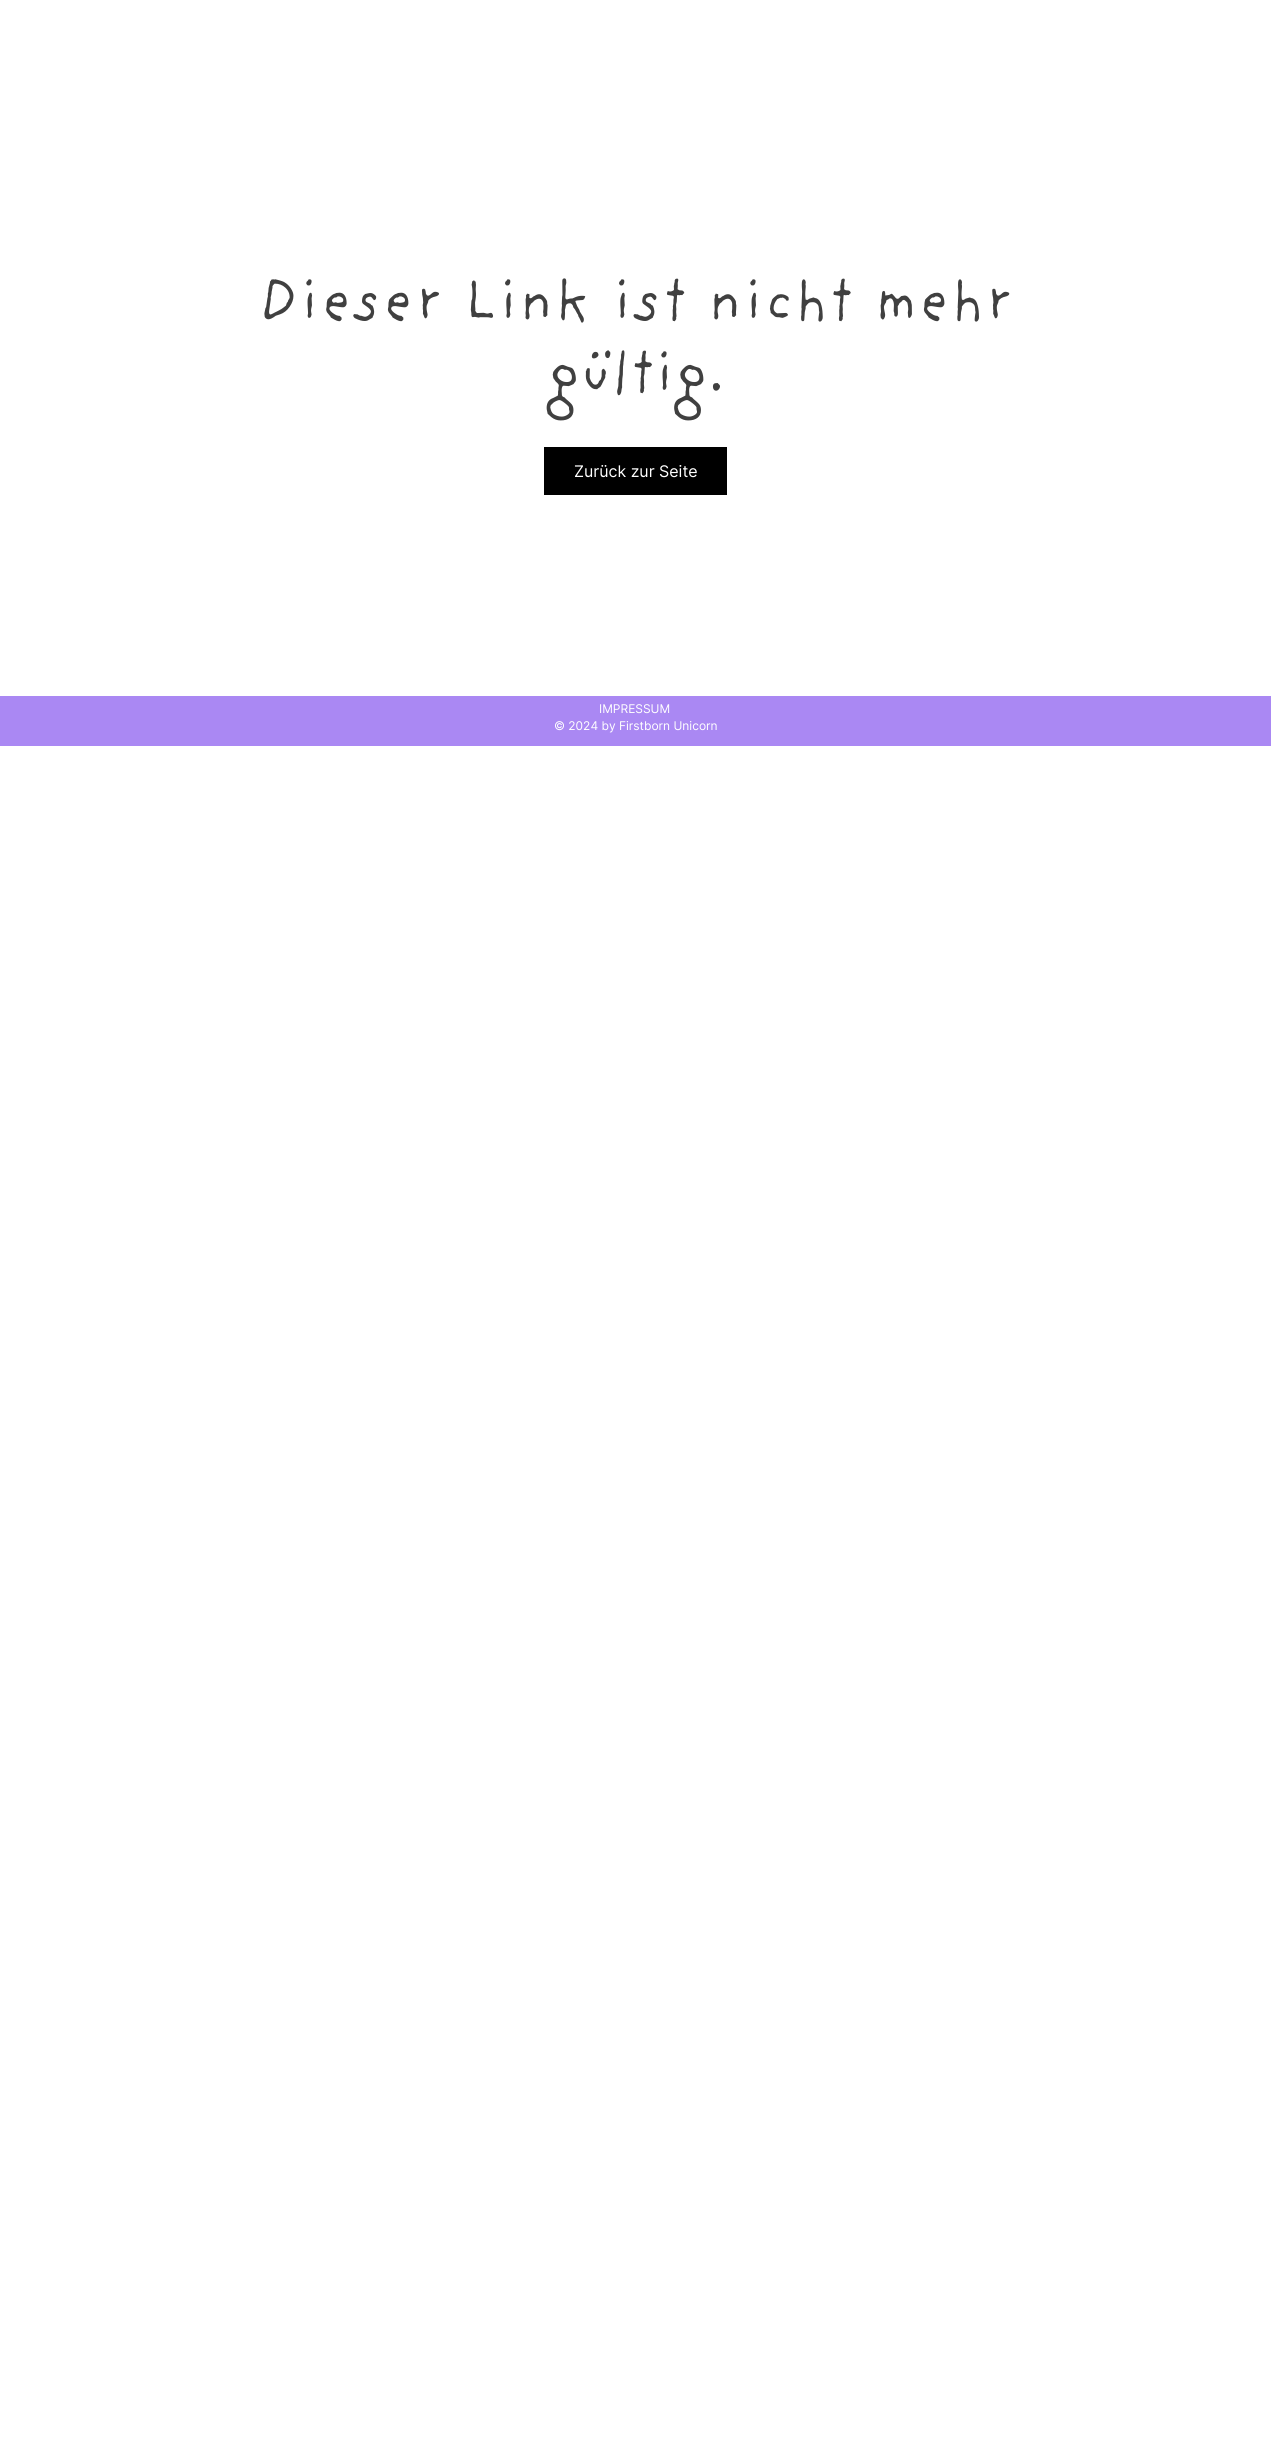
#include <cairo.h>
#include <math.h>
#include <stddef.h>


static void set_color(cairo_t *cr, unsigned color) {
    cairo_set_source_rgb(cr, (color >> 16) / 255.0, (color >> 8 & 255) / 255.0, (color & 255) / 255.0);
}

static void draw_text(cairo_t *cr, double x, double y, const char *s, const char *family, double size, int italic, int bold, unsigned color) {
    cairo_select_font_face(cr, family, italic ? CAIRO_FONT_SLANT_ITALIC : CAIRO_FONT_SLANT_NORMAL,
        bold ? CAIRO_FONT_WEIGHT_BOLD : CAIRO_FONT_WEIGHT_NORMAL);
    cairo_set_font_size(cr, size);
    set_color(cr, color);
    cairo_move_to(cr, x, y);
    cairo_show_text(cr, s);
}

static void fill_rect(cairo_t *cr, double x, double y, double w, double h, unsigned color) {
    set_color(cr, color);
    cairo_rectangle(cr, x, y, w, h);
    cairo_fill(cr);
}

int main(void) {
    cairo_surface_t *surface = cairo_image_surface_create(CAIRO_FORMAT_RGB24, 1271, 2460);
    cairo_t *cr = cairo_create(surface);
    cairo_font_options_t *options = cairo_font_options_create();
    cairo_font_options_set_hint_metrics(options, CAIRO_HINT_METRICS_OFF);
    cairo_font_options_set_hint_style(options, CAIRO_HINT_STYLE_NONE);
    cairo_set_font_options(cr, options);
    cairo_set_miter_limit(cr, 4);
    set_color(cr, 0xFFFFFF);
    cairo_paint(cr);
    draw_text(cr, 259, 320, "Dieser Link ist nicht mehr", "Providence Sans", 60, 0, 0, 0x404040);
    draw_text(cr, 547, 392, "gültig.", "Providence Sans", 60, 0, 0, 0x404040);
    fill_rect(cr, 544, 447, 183, 48, 0x000000);
    draw_text(cr, 574, 477, "Zurück zur Seite", "Inter", 16, 0, 0, 0xFFFFFF);
    fill_rect(cr, 0, 696, 1271, 50, 0xAA88F3);
    draw_text(cr, 599, 713, "IMPRESSUM", "Inter", 12, 0, 0, 0xFFFFFF);
    draw_text(cr, 554, 730, "© 2024 by Firstborn Unicorn", "Inter", 12, 0, 0, 0xFFFFFF);
    cairo_surface_write_to_png(surface, "output.png");
    cairo_font_options_destroy(options);
    cairo_destroy(cr);
    cairo_surface_destroy(surface);
    return 0;
}
